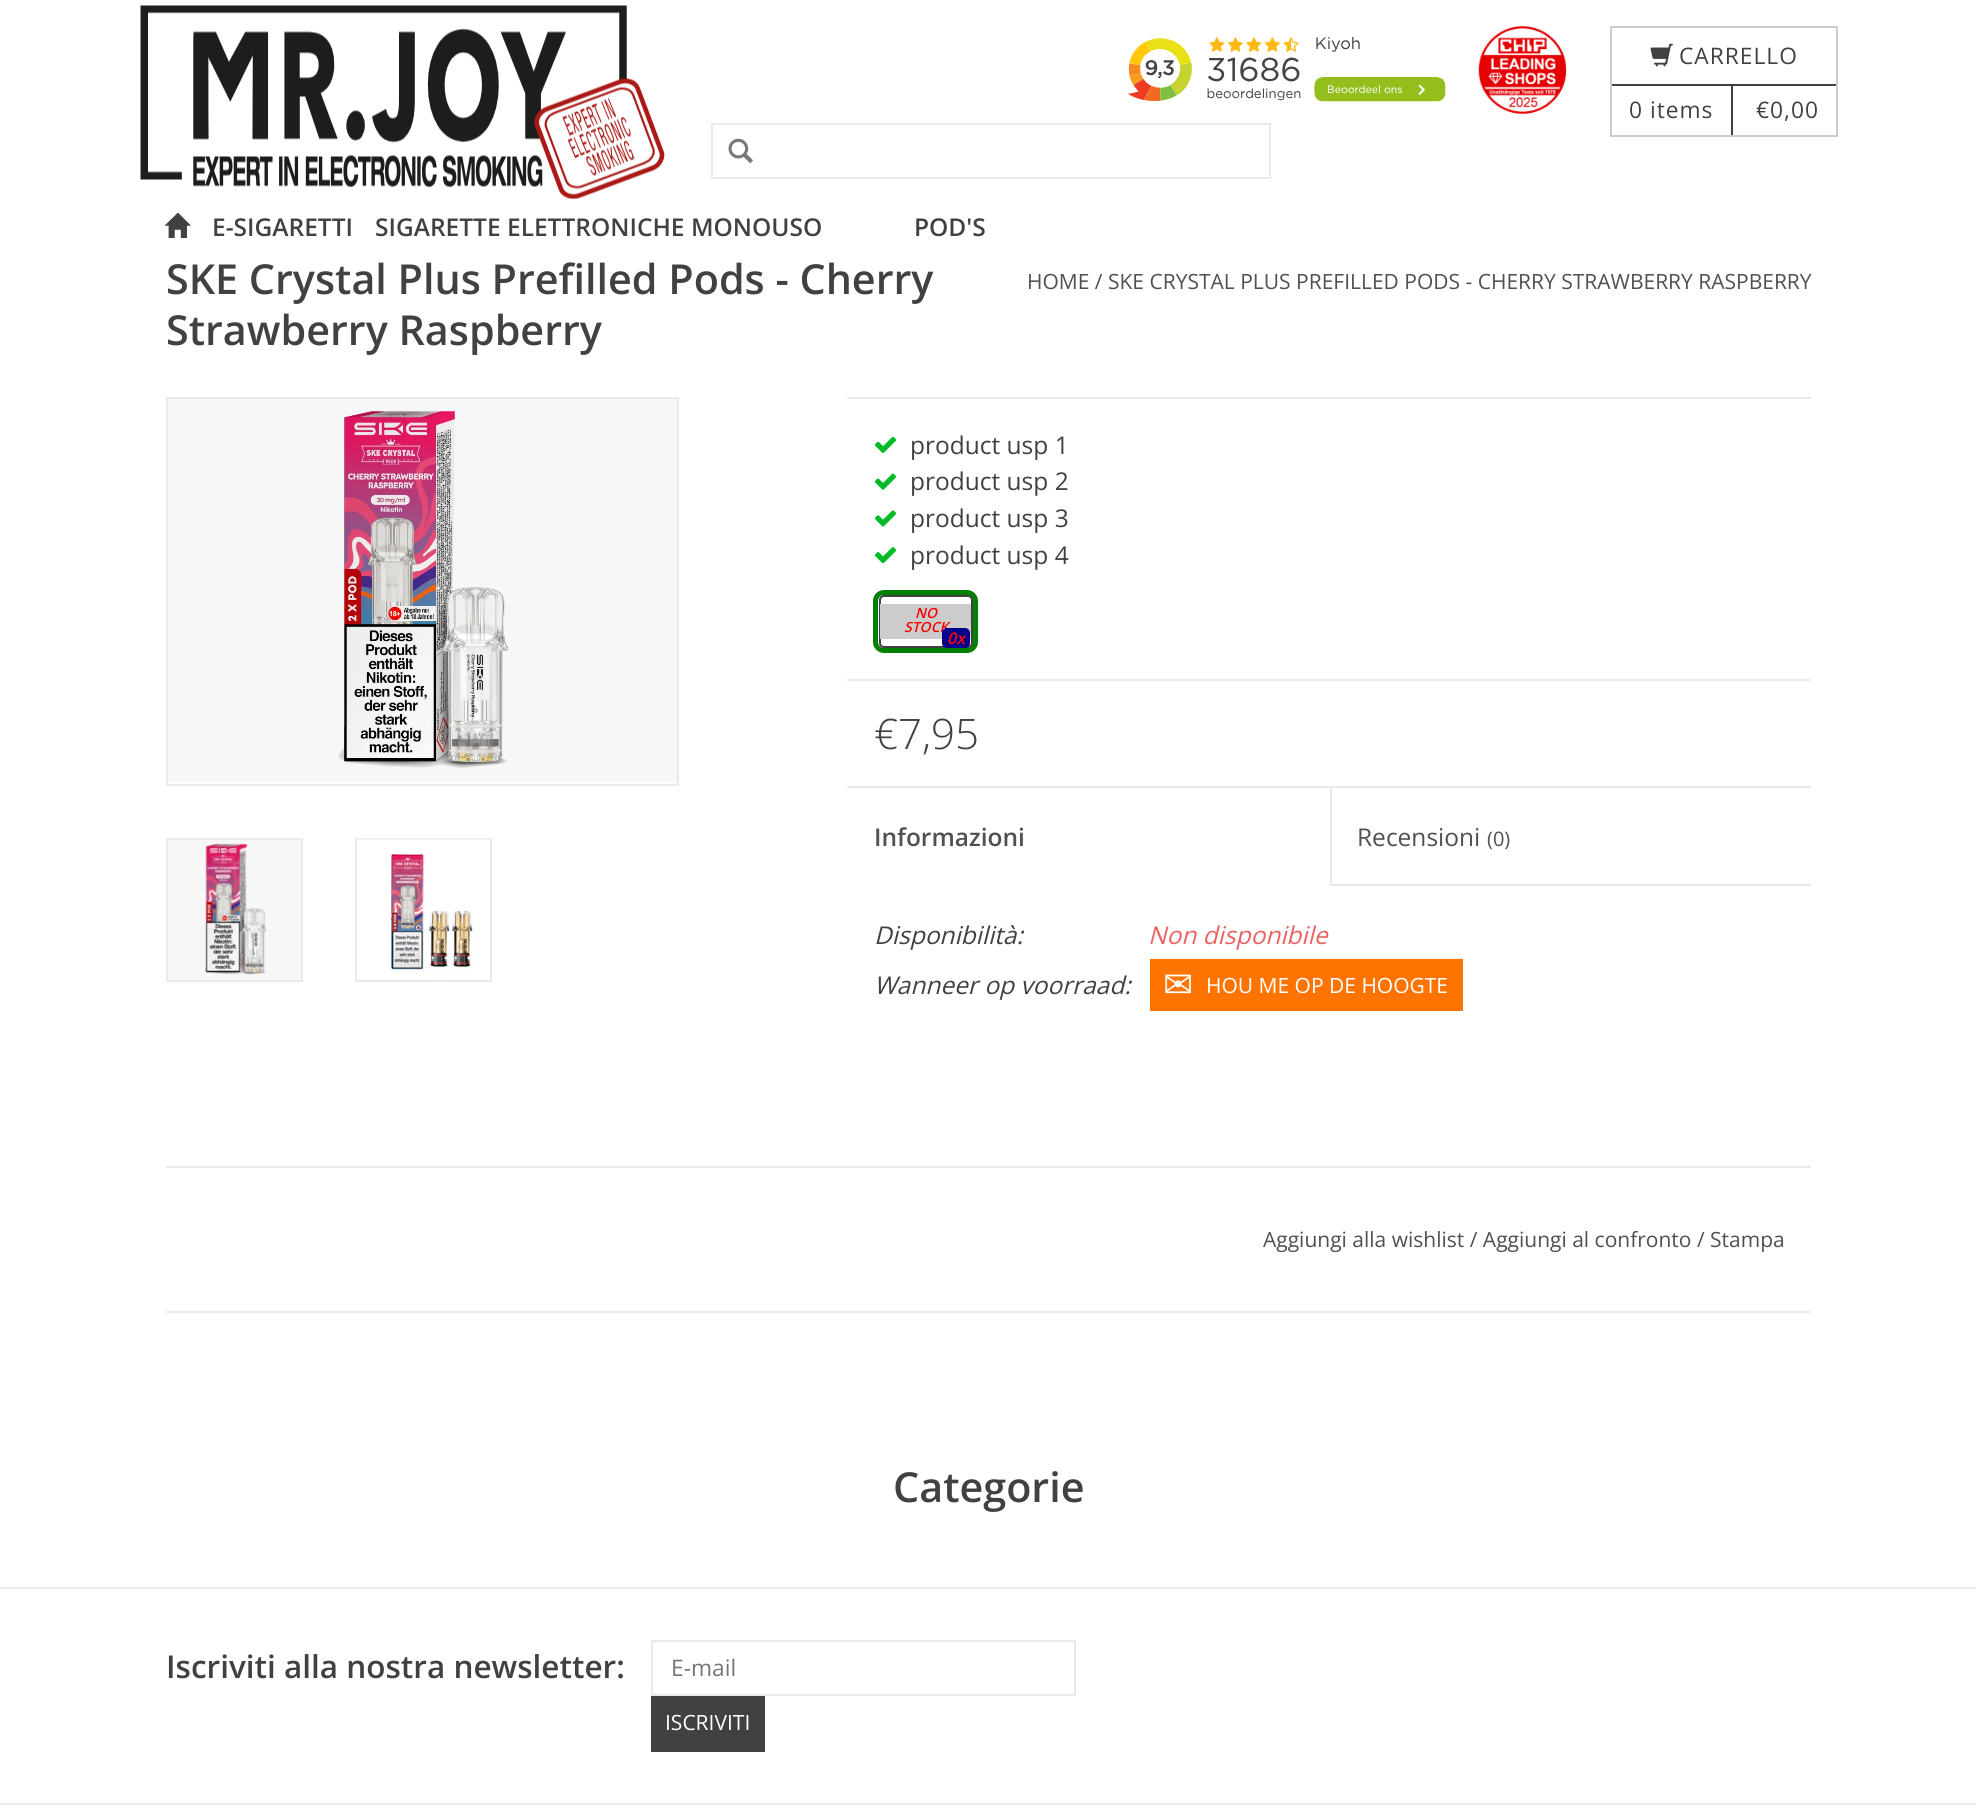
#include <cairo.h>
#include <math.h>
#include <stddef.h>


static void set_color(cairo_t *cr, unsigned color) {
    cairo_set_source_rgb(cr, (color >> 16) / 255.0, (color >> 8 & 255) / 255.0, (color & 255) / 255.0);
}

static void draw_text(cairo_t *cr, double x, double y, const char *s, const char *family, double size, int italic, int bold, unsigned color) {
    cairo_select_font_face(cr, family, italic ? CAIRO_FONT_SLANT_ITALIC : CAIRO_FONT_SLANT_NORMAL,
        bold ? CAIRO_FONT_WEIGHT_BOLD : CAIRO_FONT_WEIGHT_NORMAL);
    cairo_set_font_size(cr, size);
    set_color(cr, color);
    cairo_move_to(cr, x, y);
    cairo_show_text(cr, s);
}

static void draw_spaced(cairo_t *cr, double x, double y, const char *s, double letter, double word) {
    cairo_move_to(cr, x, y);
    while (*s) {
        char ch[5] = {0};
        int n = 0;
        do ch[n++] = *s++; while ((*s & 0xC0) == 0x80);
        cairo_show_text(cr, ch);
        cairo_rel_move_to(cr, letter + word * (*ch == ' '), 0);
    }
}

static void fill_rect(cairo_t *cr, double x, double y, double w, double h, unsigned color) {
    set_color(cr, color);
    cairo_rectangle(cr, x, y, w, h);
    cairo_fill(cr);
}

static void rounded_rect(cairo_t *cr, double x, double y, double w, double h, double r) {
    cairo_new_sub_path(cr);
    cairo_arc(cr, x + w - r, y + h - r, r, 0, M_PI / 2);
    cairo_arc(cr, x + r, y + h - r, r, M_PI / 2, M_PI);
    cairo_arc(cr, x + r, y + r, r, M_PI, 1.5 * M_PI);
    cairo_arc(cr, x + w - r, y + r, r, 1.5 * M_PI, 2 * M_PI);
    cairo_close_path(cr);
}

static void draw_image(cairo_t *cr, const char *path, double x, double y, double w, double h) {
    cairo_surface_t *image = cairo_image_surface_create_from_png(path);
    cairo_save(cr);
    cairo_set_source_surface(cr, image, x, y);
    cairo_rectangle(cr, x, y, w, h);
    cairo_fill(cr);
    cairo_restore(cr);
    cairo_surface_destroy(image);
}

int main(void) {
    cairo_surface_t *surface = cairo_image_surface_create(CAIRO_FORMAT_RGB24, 1976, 1813);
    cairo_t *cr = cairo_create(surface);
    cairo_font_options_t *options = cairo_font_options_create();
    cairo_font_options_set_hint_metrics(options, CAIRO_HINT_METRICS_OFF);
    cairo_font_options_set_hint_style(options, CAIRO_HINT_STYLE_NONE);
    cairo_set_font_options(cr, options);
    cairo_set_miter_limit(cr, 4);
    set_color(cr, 0xFFFFFF);
    cairo_paint(cr);
    draw_image(cr, "assets/img1.png", 140, 5, 525, 194);
    draw_image(cr, "assets/img2.png", 1128, 37, 318, 65);
    draw_image(cr, "assets/img3.png", 1478, 26, 89, 88);
    cairo_rectangle(cr, 1611, 27, 226, 109);
    set_color(cr, 0xCCCCCC);
    cairo_stroke(cr);
    fill_rect(cr, 1612, 84, 224, 2, 0x414141);
    draw_image(cr, "assets/img4.png", 1650, 43, 23, 24);
    cairo_select_font_face(cr, "Open Sans", CAIRO_FONT_SLANT_NORMAL, CAIRO_FONT_WEIGHT_NORMAL);
    cairo_set_font_size(cr, 22.75);
    draw_spaced(cr, 1679, 64, "CARRELLO", 1, 0);
    fill_rect(cr, 1731, 86, 2, 49, 0x414141);
    draw_spaced(cr, 1629, 118, "0 items", 1, 0);
    draw_spaced(cr, 1756, 118, "€0,00", 1, 0);
    cairo_rectangle(cr, 712, 124, 558, 54);
    set_color(cr, 0xEAEAEA);
    cairo_stroke(cr);
    draw_image(cr, "assets/img5.png", 728, 138, 25, 26);
    draw_image(cr, "assets/img6.png", 164, 212, 27, 26);
    draw_text(cr, 212, 236, "E-SIGARETTI", "Open Sans SemiBold", 24.5, 0, 0, 0x414141);
    draw_text(cr, 375, 236, "SIGARETTE ELETTRONICHE MONOUSO", "Open Sans SemiBold", 24.5, 0, 0, 0x414141);
    draw_text(cr, 914, 236, "POD'S", "Open Sans SemiBold", 24.5, 0, 0, 0x414141);
    draw_text(cr, 166, 294, "SKE Crystal Plus Prefilled Pods - Cherry", "Open Sans SemiBold", 41.3, 0, 0, 0x414141);
    draw_text(cr, 166, 345, "Strawberry Raspberry", "Open Sans SemiBold", 41.3, 0, 0, 0x414141);
    draw_text(cr, 1027, 289, "HOME / SKE CRYSTAL PLUS PREFILLED PODS - CHERRY STRAWBERRY RASPBERRY", "Open Sans", 21, 0, 0, 0x505050);
    cairo_rectangle(cr, 167, 398, 511, 387);
    set_color(cr, 0xEAEAEA);
    cairo_stroke(cr);
    fill_rect(cr, 168, 399, 509, 383, 0xF7F7F7);
    draw_image(cr, "assets/img7.png", 338, 411, 170, 358);
    cairo_rectangle(cr, 167, 839, 135, 142);
    set_color(cr, 0xEAEAEA);
    cairo_stroke(cr);
    fill_rect(cr, 168, 840, 133, 140, 0xF7F7F7);
    draw_image(cr, "assets/img8.png", 204, 843, 63, 132);
    cairo_rectangle(cr, 356, 839, 135, 142);
    set_color(cr, 0xEAEAEA);
    cairo_stroke(cr);
    fill_rect(cr, 357, 979, 133, 1, 0xF7F7F7);
    draw_image(cr, "assets/img9.png", 357, 839, 133, 141);
    fill_rect(cr, 847, 397, 964, 2, 0xEAEAEA);
    draw_image(cr, "assets/img10.png", 874, 436, 23, 17);
    draw_text(cr, 910, 454, "product usp 1", "Open Sans", 24.5, 0, 0, 0x414141);
    draw_image(cr, "assets/img11.png", 874, 473, 23, 17);
    draw_text(cr, 910, 490, "product usp 2", "Open Sans", 24.5, 0, 0, 0x414141);
    draw_image(cr, "assets/img12.png", 874, 510, 23, 17);
    draw_text(cr, 910, 527, "product usp 3", "Open Sans", 24.5, 0, 0, 0x414141);
    draw_image(cr, "assets/img13.png", 874, 547, 23, 17);
    draw_text(cr, 910, 564, "product usp 4", "Open Sans", 24.5, 0, 0, 0x414141);
    rounded_rect(cr, 875.5, 592.5, 100, 58, 8.5);
    set_color(cr, 0x008000);
    cairo_set_line_width(cr, 5);
    cairo_stroke(cr);
    set_color(cr, 0xFFFFFF);
    rounded_rect(cr, 880, 596, 92, 51, 4);
    cairo_fill_preserve(cr);
    set_color(cr, 0x414141);
    cairo_set_line_width(cr, 2);
    cairo_stroke(cr);
    fill_rect(cr, 880, 604, 91, 35, 0xCCCCCC);
    draw_text(cr, 915, 618, "NO", "Open Sans SemiBold", 14, 1, 0, 0xFF0000);
    draw_text(cr, 904, 632, "STOCK", "Open Sans SemiBold", 14, 1, 0, 0xFF0000);
    set_color(cr, 0x00008B);
    rounded_rect(cr, 943, 629, 26, 18, 4);
    cairo_fill_preserve(cr);
    cairo_stroke(cr);
    draw_text(cr, 947, 644, "0x", "Open Sans SemiBold", 16, 1, 0, 0xFF0000);
    fill_rect(cr, 847, 679, 964, 2, 0xEAEAEA);
    draw_text(cr, 874, 749, "€7,95", "Open Sans Light", 42, 0, 0, 0x414141);
    fill_rect(cr, 847, 786, 964, 2, 0xEAEAEA);
    draw_text(cr, 874, 846, "Informazioni", "Open Sans SemiBold", 24.5, 0, 0, 0x505050);
    fill_rect(cr, 1330, 884, 481, 2, 0xEAEAEA);
    fill_rect(cr, 1330, 788, 2, 98, 0xEAEAEA);
    draw_text(cr, 1357, 846, "Recensioni", "Open Sans", 24.5, 0, 0, 0x505050);
    draw_text(cr, 1487, 846, "(0)", "Open Sans", 20, 0, 0, 0x505050);
    draw_text(cr, 874, 944, "Disponibilità:", "Open Sans", 24.5, 1, 0, 0x414141);
    draw_text(cr, 1148, 944, "Non disponibile", "Open Sans", 24.5, 1, 0, 0xEB6161);
    draw_text(cr, 874, 994, "Wanneer op voorraad:", "Open Sans", 24.5, 1, 0, 0x414141);
    fill_rect(cr, 1150, 959, 313, 52, 0xFF7400);
    draw_text(cr, 1163, 997, "✉", "DejaVu Sans", 36, 0, 0, 0xFFFFFF);
    draw_text(cr, 1206, 993, "HOU ME OP DE HOOGTE", "Open Sans", 21, 0, 0, 0xFFFFFF);
    fill_rect(cr, 166, 1166, 1645, 2, 0xEAEAEA);
    fill_rect(cr, 166, 1311, 1645, 2, 0xEAEAEA);
    draw_text(cr, 1263, 1247, "Aggiungi alla wishlist / Aggiungi al confronto / Stampa", "Open Sans", 21, 0, 0, 0x505050);
    draw_text(cr, 893, 1502, "Categorie", "Open Sans SemiBold", 41.3, 0, 0, 0x414141);
    fill_rect(cr, 0, 1587, 1976, 2, 0xE9E9E9);
    draw_text(cr, 166, 1678, "Iscriviti alla nostra newsletter:", "Open Sans SemiBold", 31.5, 0, 0, 0x414141);
    cairo_rectangle(cr, 652, 1641, 423, 54);
    set_color(cr, 0xE9E9E9);
    cairo_stroke(cr);
    draw_text(cr, 671, 1676, "E-mail", "Open Sans", 22.75, 0, 0, 0x757575);
    fill_rect(cr, 651, 1696, 114, 56, 0x414141);
    draw_text(cr, 665, 1730, "ISCRIVITI", "Open Sans", 21, 0, 0, 0xFFFFFF);
    fill_rect(cr, 0, 1803, 1976, 2, 0xE9E9E9);
    cairo_surface_write_to_png(surface, "output.png");
    cairo_font_options_destroy(options);
    cairo_destroy(cr);
    cairo_surface_destroy(surface);
    return 0;
}
